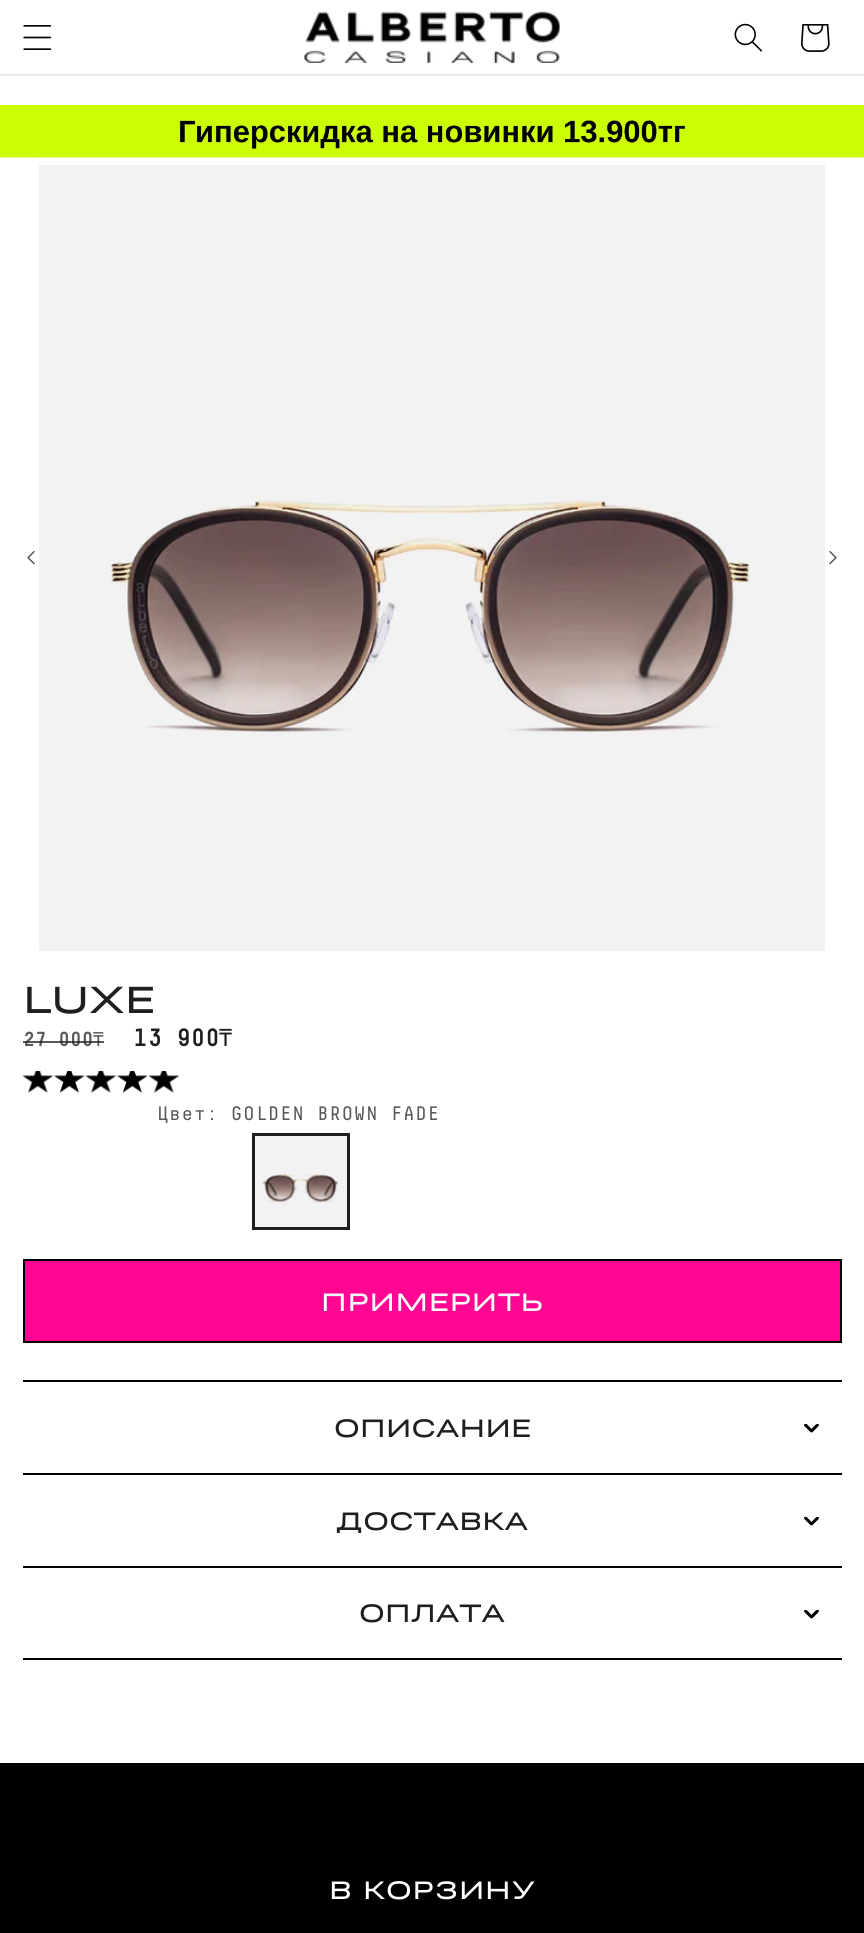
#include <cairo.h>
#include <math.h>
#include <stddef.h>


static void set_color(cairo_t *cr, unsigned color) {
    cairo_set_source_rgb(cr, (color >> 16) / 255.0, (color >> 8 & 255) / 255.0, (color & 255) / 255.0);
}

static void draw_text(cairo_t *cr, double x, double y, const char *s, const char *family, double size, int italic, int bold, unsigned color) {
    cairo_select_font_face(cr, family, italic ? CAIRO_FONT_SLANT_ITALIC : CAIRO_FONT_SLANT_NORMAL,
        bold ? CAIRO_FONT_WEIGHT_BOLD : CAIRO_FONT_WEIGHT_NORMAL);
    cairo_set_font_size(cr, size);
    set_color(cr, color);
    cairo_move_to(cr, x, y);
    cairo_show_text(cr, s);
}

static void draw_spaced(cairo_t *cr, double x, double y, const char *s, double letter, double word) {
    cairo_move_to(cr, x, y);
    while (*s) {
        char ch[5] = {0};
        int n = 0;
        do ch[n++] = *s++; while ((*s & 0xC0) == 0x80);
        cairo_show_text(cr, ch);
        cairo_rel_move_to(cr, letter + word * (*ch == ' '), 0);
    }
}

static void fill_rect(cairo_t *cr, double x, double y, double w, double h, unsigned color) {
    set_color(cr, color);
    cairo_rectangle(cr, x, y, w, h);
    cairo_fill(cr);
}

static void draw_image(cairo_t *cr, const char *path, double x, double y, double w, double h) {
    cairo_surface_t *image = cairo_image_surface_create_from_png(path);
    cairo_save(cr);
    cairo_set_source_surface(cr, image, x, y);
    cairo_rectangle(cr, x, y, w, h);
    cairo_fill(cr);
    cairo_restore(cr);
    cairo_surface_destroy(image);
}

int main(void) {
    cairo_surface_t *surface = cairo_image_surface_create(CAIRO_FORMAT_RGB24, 864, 1933);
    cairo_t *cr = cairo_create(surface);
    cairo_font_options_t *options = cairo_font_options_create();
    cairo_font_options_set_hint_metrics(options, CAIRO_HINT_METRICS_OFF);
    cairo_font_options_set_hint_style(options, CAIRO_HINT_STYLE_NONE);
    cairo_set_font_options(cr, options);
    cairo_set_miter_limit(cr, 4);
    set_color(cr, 0xFFFFFF);
    cairo_paint(cr);
    fill_rect(cr, 0, 74, 864, 2, 0xEBEBEB);
    draw_image(cr, "assets/img1.png", 23, 25, 29, 25);
    draw_image(cr, "assets/img2.png", 304, 11, 256, 52);
    draw_image(cr, "assets/img3.png", 734, 23, 28, 29);
    draw_image(cr, "assets/img4.png", 801, 24, 29, 28);
    draw_image(cr, "assets/img5.png", 0, 105, 864, 53);
    draw_image(cr, "assets/img6.png", 27, 551, 8, 14);
    draw_image(cr, "assets/img7.png", 39, 165, 786, 786);
    draw_image(cr, "assets/img8.png", 829, 551, 8, 14);
    cairo_select_font_face(cr, "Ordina", CAIRO_FONT_SLANT_NORMAL, CAIRO_FONT_WEIGHT_BOLD);
    cairo_set_font_size(cr, 36);
    set_color(cr, 0x1F1F21);
    draw_spaced(cr, 23, 1013, "LUXE", 1, 0);
    draw_text(cr, 23, 1046, "27 000", "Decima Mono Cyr", 19.5, 0, 1, 0x575759);
    draw_text(cr, 93, 1046, "₸", "Noto Sans", 19.5, 0, 0, 0x575759);
    cairo_set_source_rgba(cr, 0.122, 0.122, 0.129, 0.75);
    cairo_rectangle(cr, 23, 1041, 81, 2);
    cairo_fill(cr);
    draw_text(cr, 133, 1046, "13 900", "Decima Mono Cyr", 24, 0, 1, 0x1F1F21);
    draw_text(cr, 219, 1046, "₸", "Noto Sans", 24, 0, 0, 0x1F1F21);
    draw_image(cr, "assets/img9.png", 22, 1071, 32, 22);
    draw_image(cr, "assets/img10.png", 54, 1071, 31, 22);
    draw_image(cr, "assets/img9.png", 85, 1071, 32, 22);
    draw_image(cr, "assets/img10.png", 117, 1071, 31, 22);
    draw_image(cr, "assets/img9.png", 148, 1071, 32, 22);
    cairo_select_font_face(cr, "Decima Mono Cyr", CAIRO_FONT_SLANT_NORMAL, CAIRO_FONT_WEIGHT_NORMAL);
    cairo_set_font_size(cr, 19.5);
    set_color(cr, 0x575759);
    draw_spaced(cr, 157, 1120, "Цвет: GOLDEN BROWN FADE", 0.6, 0);
    draw_image(cr, "assets/img11.png", 251, 1132, 99, 98);
    cairo_rectangle(cr, 253.5, 1134.5, 95, 94);
    set_color(cr, 0x1F1F21);
    cairo_set_line_width(cr, 3);
    cairo_stroke(cr);
    fill_rect(cr, 25, 1261, 815, 80, 0xFF0793);
    cairo_rectangle(cr, 24, 1260, 817, 82);
    set_color(cr, 0x000000);
    cairo_set_line_width(cr, 2);
    cairo_stroke(cr);
    cairo_select_font_face(cr, "Ordina", CAIRO_FONT_SLANT_NORMAL, CAIRO_FONT_WEIGHT_BOLD);
    cairo_set_font_size(cr, 24);
    set_color(cr, 0xFFFFFF);
    draw_spaced(cr, 321, 1311, "ПРИМЕРИТЬ", 1.5, 0);
    fill_rect(cr, 23, 1380, 819, 2, 0x000000);
    fill_rect(cr, 23, 1473, 819, 2, 0x000000);
    set_color(cr, 0x1F1F21);
    draw_spaced(cr, 334, 1437, "ОПИСАНИЕ", 1, 0);
    draw_image(cr, "assets/img12.png", 804, 1424, 15, 9);
    fill_rect(cr, 23, 1566, 819, 2, 0x000000);
    set_color(cr, 0x1F1F21);
    draw_spaced(cr, 336, 1530, "ДОСТАВКА", 1, 0);
    draw_image(cr, "assets/img12.png", 804, 1517, 15, 9);
    fill_rect(cr, 23, 1658, 819, 2, 0x000000);
    set_color(cr, 0x1F1F21);
    draw_spaced(cr, 359, 1622, "ОПЛАТА", 1, 0);
    draw_image(cr, "assets/img12.png", 804, 1610, 15, 9);
    fill_rect(cr, 0, 1763, 864, 170, 0x000000);
    set_color(cr, 0xFFFFFF);
    draw_spaced(cr, 329, 1899, "В КОРЗИНУ", 1.5, 0);
    cairo_surface_write_to_png(surface, "output.png");
    cairo_font_options_destroy(options);
    cairo_destroy(cr);
    cairo_surface_destroy(surface);
    return 0;
}
